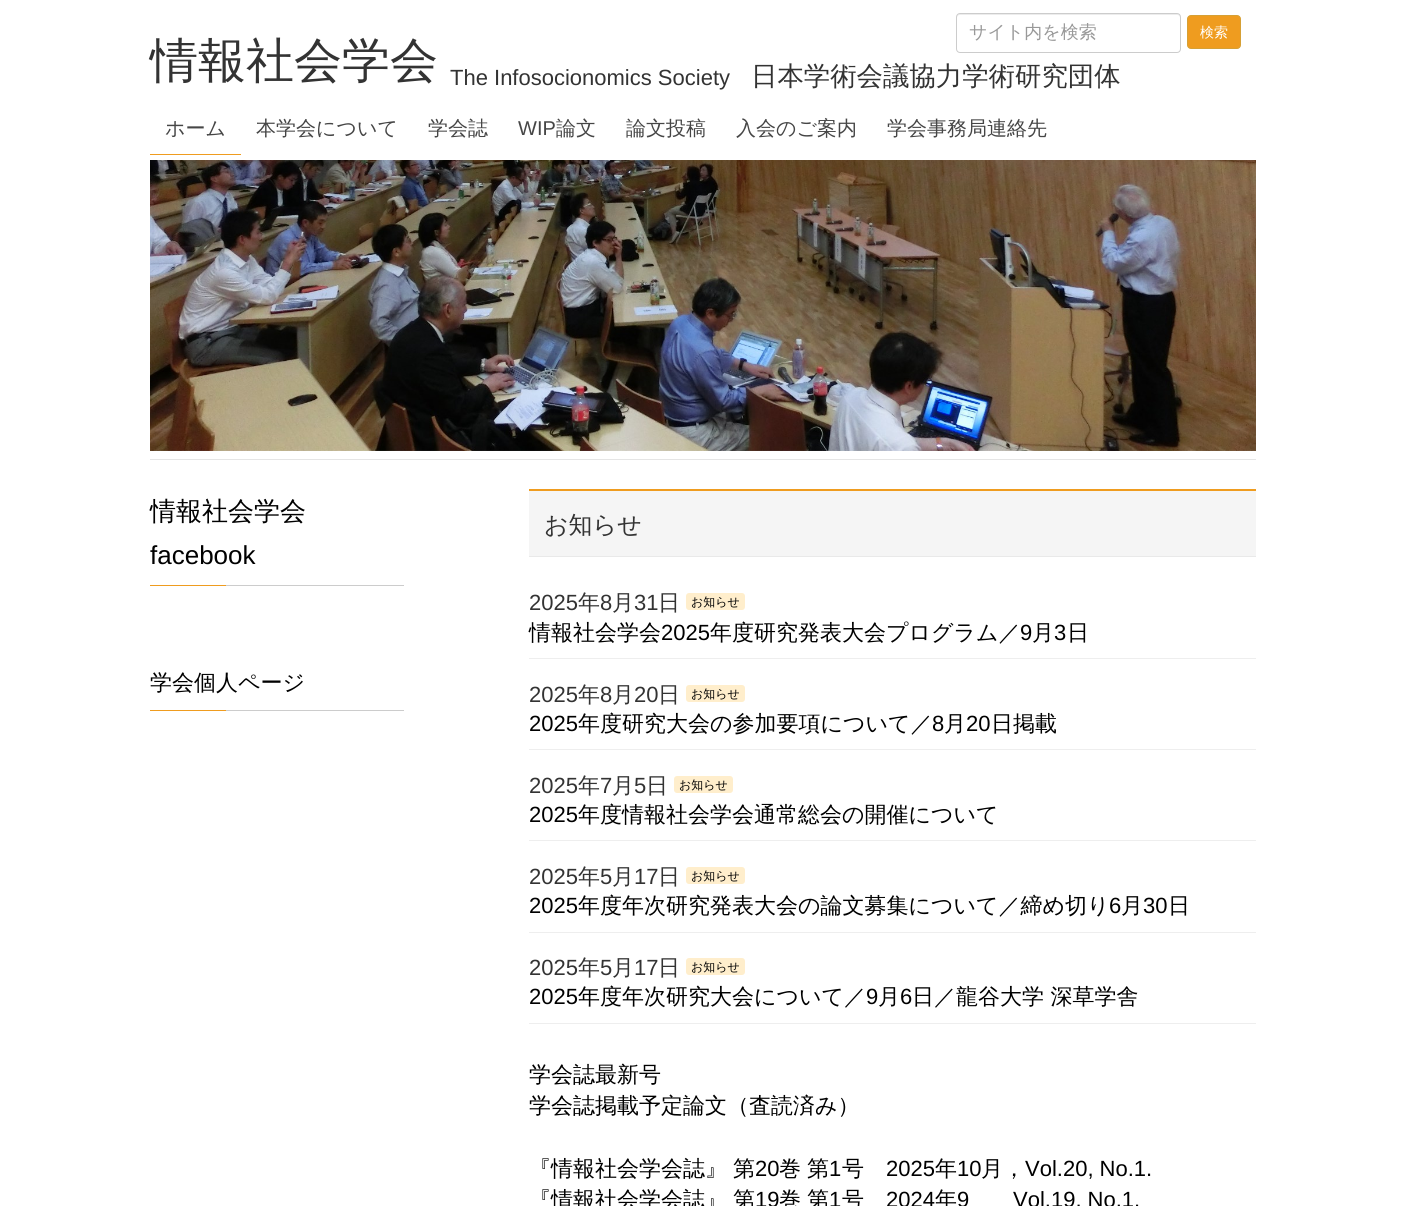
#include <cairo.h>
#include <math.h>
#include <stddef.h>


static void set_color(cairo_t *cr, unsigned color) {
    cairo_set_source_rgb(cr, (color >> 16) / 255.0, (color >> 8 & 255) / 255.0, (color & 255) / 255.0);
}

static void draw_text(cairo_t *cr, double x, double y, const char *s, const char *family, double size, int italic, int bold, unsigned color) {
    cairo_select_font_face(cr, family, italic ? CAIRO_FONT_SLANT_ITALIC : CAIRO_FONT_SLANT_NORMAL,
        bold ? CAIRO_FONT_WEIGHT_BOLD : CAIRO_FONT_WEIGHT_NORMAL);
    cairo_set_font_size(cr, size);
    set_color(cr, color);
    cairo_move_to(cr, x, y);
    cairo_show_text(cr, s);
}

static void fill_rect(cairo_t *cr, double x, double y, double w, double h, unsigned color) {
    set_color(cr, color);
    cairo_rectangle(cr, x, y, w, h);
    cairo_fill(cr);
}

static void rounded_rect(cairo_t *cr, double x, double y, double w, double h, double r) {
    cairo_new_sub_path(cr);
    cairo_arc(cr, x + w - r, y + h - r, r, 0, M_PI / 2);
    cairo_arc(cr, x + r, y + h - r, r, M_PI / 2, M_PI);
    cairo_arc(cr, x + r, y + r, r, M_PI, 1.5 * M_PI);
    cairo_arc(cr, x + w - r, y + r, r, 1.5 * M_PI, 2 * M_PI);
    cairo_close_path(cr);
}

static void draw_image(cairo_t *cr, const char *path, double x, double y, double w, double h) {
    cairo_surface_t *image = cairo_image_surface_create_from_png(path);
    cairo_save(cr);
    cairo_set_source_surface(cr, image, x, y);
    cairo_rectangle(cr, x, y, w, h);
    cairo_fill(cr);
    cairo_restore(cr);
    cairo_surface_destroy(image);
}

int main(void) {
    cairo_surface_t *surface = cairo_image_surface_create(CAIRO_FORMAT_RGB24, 1406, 1206);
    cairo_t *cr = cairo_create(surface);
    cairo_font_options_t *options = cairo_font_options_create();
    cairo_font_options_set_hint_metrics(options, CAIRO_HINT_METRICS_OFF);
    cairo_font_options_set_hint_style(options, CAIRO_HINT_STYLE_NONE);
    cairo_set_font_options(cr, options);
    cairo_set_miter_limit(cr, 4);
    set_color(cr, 0xFFFFFF);
    cairo_paint(cr);
    set_color(cr, 0xECECEC);
    cairo_new_path(cr);
    cairo_move_to(cr, 960, 15);
    cairo_line_to(cr, 1177, 15);
    cairo_curve_to(cr, 1179, 15, 1180, 16, 1180, 18);
    cairo_line_to(cr, 1180, 17);
    cairo_curve_to(cr, 1180, 15, 1179, 14, 1177, 14);
    cairo_line_to(cr, 960, 14);
    cairo_curve_to(cr, 958, 14, 957, 15, 957, 17);
    cairo_line_to(cr, 957, 18);
    cairo_curve_to(cr, 957, 16, 958, 15, 960, 15);
    cairo_close_path(cr);
    cairo_fill(cr);
    rounded_rect(cr, 956.5, 13.5, 224, 39, 3.5);
    set_color(cr, 0xCCCCCC);
    cairo_set_line_width(cr, 1);
    cairo_stroke(cr);
    draw_text(cr, 969, 38, "サイト内を検索", "WenQuanYi Zen Hei Medium", 18, 0, 0, 0x999999);
    set_color(cr, 0xEF9C1F);
    rounded_rect(cr, 1187.5, 15.5, 53, 33, 3.5);
    cairo_fill_preserve(cr);
    set_color(cr, 0xD6A035);
    cairo_stroke(cr);
    draw_text(cr, 1200, 37, "検索", "WenQuanYi Zen Hei Medium", 14, 0, 0, 0xFFFFFF);
    draw_text(cr, 150, 77, "情報社会学会", "WenQuanYi Zen Hei Medium", 48, 0, 0, 0x333333);
    draw_text(cr, 450, 85, "The Infosocionomics Society", "Liberation Sans", 22, 0, 0, 0x333333);
    draw_text(cr, 751, 85, "日本学術会議協力学術研究団体", "WenQuanYi Zen Hei Medium", 26.4, 0, 0, 0x333333);
    draw_text(cr, 165, 135, "ホーム", "WenQuanYi Zen Hei Medium", 20, 0, 0, 0x464646);
    fill_rect(cr, 150, 154, 91, 1, 0xEF9C1F);
    draw_text(cr, 256, 135, "本学会について", "WenQuanYi Zen Hei Medium", 20, 0, 0, 0x464646);
    draw_text(cr, 428, 135, "学会誌", "WenQuanYi Zen Hei Medium", 20, 0, 0, 0x464646);
    draw_text(cr, 518, 135, "WIP", "Liberation Sans", 20, 0, 0, 0x464646);
    draw_text(cr, 556, 135, "論文", "WenQuanYi Zen Hei Medium", 20, 0, 0, 0x464646);
    draw_text(cr, 626, 135, "論文投稿", "WenQuanYi Zen Hei Medium", 20, 0, 0, 0x464646);
    draw_text(cr, 736, 135, "入会のご案内", "WenQuanYi Zen Hei Medium", 20, 0, 0, 0x464646);
    draw_text(cr, 887, 135, "学会事務局連絡先", "WenQuanYi Zen Hei Medium", 20, 0, 0, 0x464646);
    fill_rect(cr, 150, 459, 1106, 1, 0xE5E5E5);
    draw_image(cr, "assets/img1.png", 150, 160, 1106, 291);
    fill_rect(cr, 226, 585, 178, 1, 0xCCCCCC);
    draw_text(cr, 150, 520, "情報社会学会", "WenQuanYi Zen Hei Medium", 26, 0, 0, 0x000000);
    draw_text(cr, 150, 564, "facebook", "Liberation Sans", 26, 0, 0, 0x000000);
    fill_rect(cr, 150, 585, 76, 1, 0xEF9C1F);
    fill_rect(cr, 226, 710, 178, 1, 0xCCCCCC);
    draw_text(cr, 150, 690, "学会個人ページ", "WenQuanYi Zen Hei Medium", 22, 0, 0, 0x000000);
    fill_rect(cr, 150, 710, 76, 1, 0xEF9C1F);
    fill_rect(cr, 529, 491, 727, 65, 0xF5F5F5);
    fill_rect(cr, 529, 489, 727, 2, 0xEF9C1F);
    fill_rect(cr, 529, 556, 727, 1, 0xE9E9E9);
    draw_text(cr, 544, 533, "お知らせ", "WenQuanYi Zen Hei Medium", 24, 0, 0, 0x333333);
    draw_text(cr, 529, 610, "2025", "Liberation Sans", 22, 0, 0, 0x333333);
    draw_text(cr, 578, 610, "年", "WenQuanYi Zen Hei Medium", 22, 0, 0, 0x333333);
    draw_text(cr, 600, 610, "8", "Liberation Sans", 22, 0, 0, 0x333333);
    draw_text(cr, 612, 610, "月", "WenQuanYi Zen Hei Medium", 22, 0, 0, 0x333333);
    draw_text(cr, 634, 610, "31", "Liberation Sans", 22, 0, 0, 0x333333);
    draw_text(cr, 658, 610, "日", "WenQuanYi Zen Hei Medium", 22, 0, 0, 0x333333);
    set_color(cr, 0xFFEECC);
    rounded_rect(cr, 686, 593, 59, 17, 3);
    cairo_fill(cr);
    draw_text(cr, 691, 606, "お知らせ", "WenQuanYi Zen Hei Medium", 12, 0, 0, 0x000000);
    draw_text(cr, 529, 640, "情報社会学会", "WenQuanYi Zen Hei Medium", 22, 0, 0, 0x000000);
    draw_text(cr, 661, 640, "2025", "Liberation Sans", 22, 0, 0, 0x000000);
    draw_text(cr, 710, 640, "年度研究発表大会プログラム／", "WenQuanYi Zen Hei Medium", 22, 0, 0, 0x000000);
    draw_text(cr, 1020, 640, "9", "Liberation Sans", 22, 0, 0, 0x000000);
    draw_text(cr, 1032, 640, "月", "WenQuanYi Zen Hei Medium", 22, 0, 0, 0x000000);
    draw_text(cr, 1054, 640, "3", "Liberation Sans", 22, 0, 0, 0x000000);
    draw_text(cr, 1067, 640, "日", "WenQuanYi Zen Hei Medium", 22, 0, 0, 0x000000);
    fill_rect(cr, 529, 658, 727, 1, 0xEEEEEE);
    draw_text(cr, 529, 702, "2025", "Liberation Sans", 22, 0, 0, 0x333333);
    draw_text(cr, 578, 702, "年", "WenQuanYi Zen Hei Medium", 22, 0, 0, 0x333333);
    draw_text(cr, 600, 702, "8", "Liberation Sans", 22, 0, 0, 0x333333);
    draw_text(cr, 612, 702, "月", "WenQuanYi Zen Hei Medium", 22, 0, 0, 0x333333);
    draw_text(cr, 634, 702, "20", "Liberation Sans", 22, 0, 0, 0x333333);
    draw_text(cr, 658, 702, "日", "WenQuanYi Zen Hei Medium", 22, 0, 0, 0x333333);
    set_color(cr, 0xFFEECC);
    rounded_rect(cr, 686, 685, 59, 17, 3);
    cairo_fill(cr);
    draw_text(cr, 691, 698, "お知らせ", "WenQuanYi Zen Hei Medium", 12, 0, 0, 0x000000);
    draw_text(cr, 529, 731, "2025", "Liberation Sans", 22, 0, 0, 0x000000);
    draw_text(cr, 578, 731, "年度研究大会の参加要項について／", "WenQuanYi Zen Hei Medium", 22, 0, 0, 0x000000);
    draw_text(cr, 932, 731, "8", "Liberation Sans", 22, 0, 0, 0x000000);
    draw_text(cr, 944, 731, "月", "WenQuanYi Zen Hei Medium", 22, 0, 0, 0x000000);
    draw_text(cr, 966, 731, "20", "Liberation Sans", 22, 0, 0, 0x000000);
    draw_text(cr, 991, 731, "日掲載", "WenQuanYi Zen Hei Medium", 22, 0, 0, 0x000000);
    fill_rect(cr, 529, 749, 727, 1, 0xEEEEEE);
    draw_text(cr, 529, 793, "2025", "Liberation Sans", 22, 0, 0, 0x333333);
    draw_text(cr, 578, 793, "年", "WenQuanYi Zen Hei Medium", 22, 0, 0, 0x333333);
    draw_text(cr, 600, 793, "7", "Liberation Sans", 22, 0, 0, 0x333333);
    draw_text(cr, 612, 793, "月", "WenQuanYi Zen Hei Medium", 22, 0, 0, 0x333333);
    draw_text(cr, 634, 793, "5", "Liberation Sans", 22, 0, 0, 0x333333);
    draw_text(cr, 646, 793, "日", "WenQuanYi Zen Hei Medium", 22, 0, 0, 0x333333);
    set_color(cr, 0xFFEECC);
    rounded_rect(cr, 674, 776, 59, 17, 3);
    cairo_fill(cr);
    draw_text(cr, 679, 789, "お知らせ", "WenQuanYi Zen Hei Medium", 12, 0, 0, 0x000000);
    draw_text(cr, 529, 822, "2025", "Liberation Sans", 22, 0, 0, 0x000000);
    draw_text(cr, 578, 822, "年度情報社会学会通常総会の開催について", "WenQuanYi Zen Hei Medium", 22, 0, 0, 0x000000);
    fill_rect(cr, 529, 840, 727, 1, 0xEEEEEE);
    draw_text(cr, 529, 884, "2025", "Liberation Sans", 22, 0, 0, 0x333333);
    draw_text(cr, 578, 884, "年", "WenQuanYi Zen Hei Medium", 22, 0, 0, 0x333333);
    draw_text(cr, 600, 884, "5", "Liberation Sans", 22, 0, 0, 0x333333);
    draw_text(cr, 612, 884, "月", "WenQuanYi Zen Hei Medium", 22, 0, 0, 0x333333);
    draw_text(cr, 634, 884, "17", "Liberation Sans", 22, 0, 0, 0x333333);
    draw_text(cr, 658, 884, "日", "WenQuanYi Zen Hei Medium", 22, 0, 0, 0x333333);
    set_color(cr, 0xFFEECC);
    rounded_rect(cr, 686, 867, 59, 17, 3);
    cairo_fill(cr);
    draw_text(cr, 691, 880, "お知らせ", "WenQuanYi Zen Hei Medium", 12, 0, 0, 0x000000);
    draw_text(cr, 529, 913, "2025", "Liberation Sans", 22, 0, 0, 0x000000);
    draw_text(cr, 578, 913, "年度年次研究発表大会の論文募集について／締め切り", "WenQuanYi Zen Hei Medium", 22, 0, 0, 0x000000);
    draw_text(cr, 1109, 913, "6", "Liberation Sans", 22, 0, 0, 0x000000);
    draw_text(cr, 1121, 913, "月", "WenQuanYi Zen Hei Medium", 22, 0, 0, 0x000000);
    draw_text(cr, 1143, 913, "30", "Liberation Sans", 22, 0, 0, 0x000000);
    draw_text(cr, 1168, 913, "日", "WenQuanYi Zen Hei Medium", 22, 0, 0, 0x000000);
    fill_rect(cr, 529, 932, 727, 1, 0xEEEEEE);
    draw_text(cr, 529, 975, "2025", "Liberation Sans", 22, 0, 0, 0x333333);
    draw_text(cr, 578, 975, "年", "WenQuanYi Zen Hei Medium", 22, 0, 0, 0x333333);
    draw_text(cr, 600, 975, "5", "Liberation Sans", 22, 0, 0, 0x333333);
    draw_text(cr, 612, 975, "月", "WenQuanYi Zen Hei Medium", 22, 0, 0, 0x333333);
    draw_text(cr, 634, 975, "17", "Liberation Sans", 22, 0, 0, 0x333333);
    draw_text(cr, 658, 975, "日", "WenQuanYi Zen Hei Medium", 22, 0, 0, 0x333333);
    set_color(cr, 0xFFEECC);
    rounded_rect(cr, 686, 958, 59, 17, 3);
    cairo_fill(cr);
    draw_text(cr, 691, 971, "お知らせ", "WenQuanYi Zen Hei Medium", 12, 0, 0, 0x000000);
    draw_text(cr, 529, 1004, "2025", "Liberation Sans", 22, 0, 0, 0x000000);
    draw_text(cr, 578, 1004, "年度年次研究大会について／", "WenQuanYi Zen Hei Medium", 22, 0, 0, 0x000000);
    draw_text(cr, 866, 1004, "9", "Liberation Sans", 22, 0, 0, 0x000000);
    draw_text(cr, 878, 1004, "月", "WenQuanYi Zen Hei Medium", 22, 0, 0, 0x000000);
    draw_text(cr, 900, 1004, "6", "Liberation Sans", 22, 0, 0, 0x000000);
    draw_text(cr, 912, 1004, "日／龍谷大学 深草学舎", "WenQuanYi Zen Hei Medium", 22, 0, 0, 0x000000);
    fill_rect(cr, 529, 1023, 727, 1, 0xEEEEEE);
    draw_text(cr, 529, 1082, "学会誌最新号", "WenQuanYi Zen Hei Medium", 22, 0, 0, 0x000000);
    draw_text(cr, 529, 1113, "学会誌掲載予定論文（査読済み）", "WenQuanYi Zen Hei Medium", 22, 0, 0, 0x000000);
    draw_text(cr, 529, 1176, "『情報社会学会誌』", "WenQuanYi Zen Hei Medium", 22, 0, 0, 0x000000);
    draw_text(cr, 733, 1176, "第", "WenQuanYi Zen Hei Medium", 22, 0, 0, 0x000000);
    draw_text(cr, 755, 1176, "20", "Liberation Sans", 22, 0, 0, 0x000000);
    draw_text(cr, 779, 1176, "巻", "WenQuanYi Zen Hei Medium", 22, 0, 0, 0x000000);
    draw_text(cr, 807, 1176, "第", "WenQuanYi Zen Hei Medium", 22, 0, 0, 0x000000);
    draw_text(cr, 829, 1176, "1", "Liberation Sans", 22, 0, 0, 0x000000);
    draw_text(cr, 842, 1176, "号", "WenQuanYi Zen Hei Medium", 22, 0, 0, 0x000000);
    draw_text(cr, 886, 1176, "2025", "Liberation Sans", 22, 0, 0, 0x000000);
    draw_text(cr, 935, 1176, "年", "WenQuanYi Zen Hei Medium", 22, 0, 0, 0x000000);
    draw_text(cr, 957, 1176, "10", "Liberation Sans", 22, 0, 0, 0x000000);
    draw_text(cr, 981, 1176, "月，", "WenQuanYi Zen Hei Medium", 22, 0, 0, 0x000000);
    draw_text(cr, 1025, 1176, "Vol.20, No.1.", "Liberation Sans", 22, 0, 0, 0x000000);
    draw_text(cr, 529, 1207, "『情報社会学会誌』", "WenQuanYi Zen Hei Medium", 22, 0, 0, 0x000000);
    draw_text(cr, 733, 1207, "第", "WenQuanYi Zen Hei Medium", 22, 0, 0, 0x000000);
    draw_text(cr, 755, 1207, "19", "Liberation Sans", 22, 0, 0, 0x000000);
    draw_text(cr, 779, 1207, "巻", "WenQuanYi Zen Hei Medium", 22, 0, 0, 0x000000);
    draw_text(cr, 807, 1207, "第", "WenQuanYi Zen Hei Medium", 22, 0, 0, 0x000000);
    draw_text(cr, 829, 1207, "1", "Liberation Sans", 22, 0, 0, 0x000000);
    draw_text(cr, 842, 1207, "号", "WenQuanYi Zen Hei Medium", 22, 0, 0, 0x000000);
    draw_text(cr, 886, 1207, "2024", "Liberation Sans", 22, 0, 0, 0x000000);
    draw_text(cr, 935, 1207, "年", "WenQuanYi Zen Hei Medium", 22, 0, 0, 0x000000);
    draw_text(cr, 957, 1207, "9", "Liberation Sans", 22, 0, 0, 0x000000);
    draw_text(cr, 1013, 1207, "Vol.19, No.1.", "Liberation Sans", 22, 0, 0, 0x000000);
    cairo_surface_write_to_png(surface, "output.png");
    cairo_font_options_destroy(options);
    cairo_destroy(cr);
    cairo_surface_destroy(surface);
    return 0;
}
